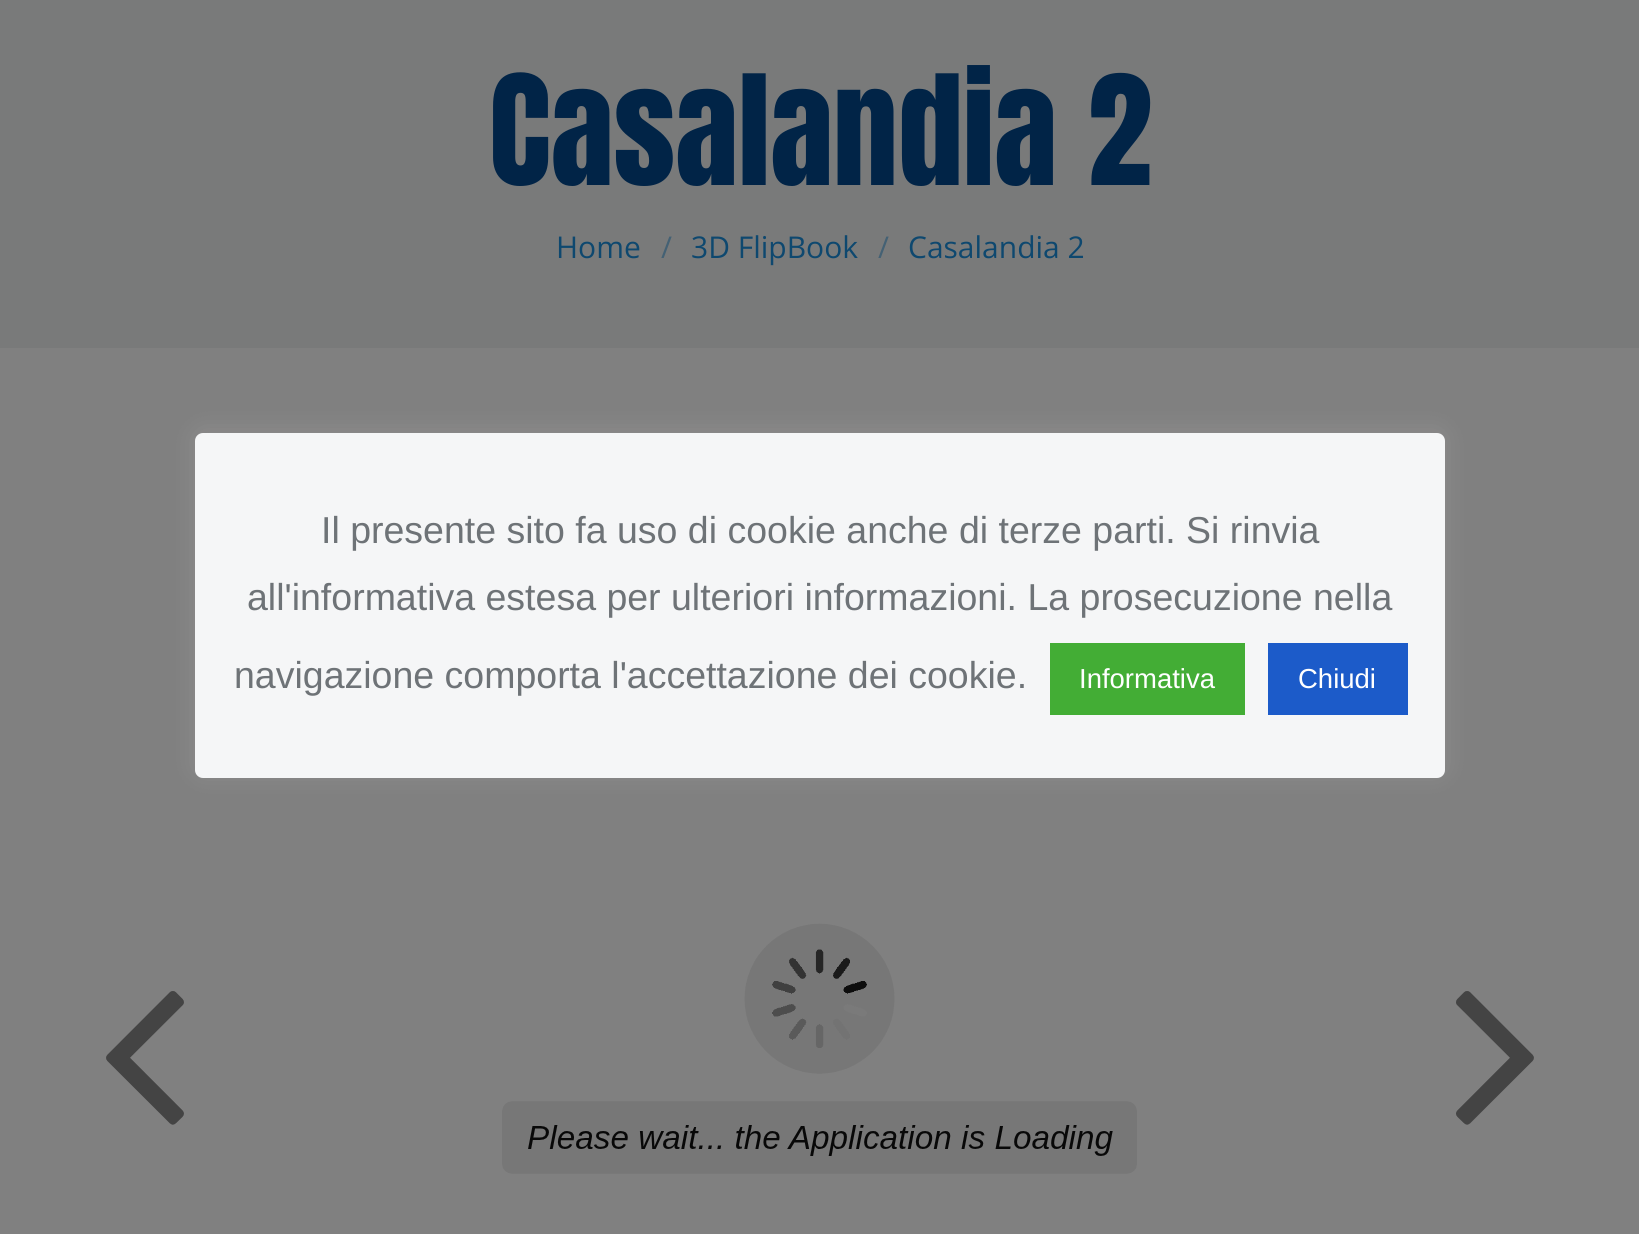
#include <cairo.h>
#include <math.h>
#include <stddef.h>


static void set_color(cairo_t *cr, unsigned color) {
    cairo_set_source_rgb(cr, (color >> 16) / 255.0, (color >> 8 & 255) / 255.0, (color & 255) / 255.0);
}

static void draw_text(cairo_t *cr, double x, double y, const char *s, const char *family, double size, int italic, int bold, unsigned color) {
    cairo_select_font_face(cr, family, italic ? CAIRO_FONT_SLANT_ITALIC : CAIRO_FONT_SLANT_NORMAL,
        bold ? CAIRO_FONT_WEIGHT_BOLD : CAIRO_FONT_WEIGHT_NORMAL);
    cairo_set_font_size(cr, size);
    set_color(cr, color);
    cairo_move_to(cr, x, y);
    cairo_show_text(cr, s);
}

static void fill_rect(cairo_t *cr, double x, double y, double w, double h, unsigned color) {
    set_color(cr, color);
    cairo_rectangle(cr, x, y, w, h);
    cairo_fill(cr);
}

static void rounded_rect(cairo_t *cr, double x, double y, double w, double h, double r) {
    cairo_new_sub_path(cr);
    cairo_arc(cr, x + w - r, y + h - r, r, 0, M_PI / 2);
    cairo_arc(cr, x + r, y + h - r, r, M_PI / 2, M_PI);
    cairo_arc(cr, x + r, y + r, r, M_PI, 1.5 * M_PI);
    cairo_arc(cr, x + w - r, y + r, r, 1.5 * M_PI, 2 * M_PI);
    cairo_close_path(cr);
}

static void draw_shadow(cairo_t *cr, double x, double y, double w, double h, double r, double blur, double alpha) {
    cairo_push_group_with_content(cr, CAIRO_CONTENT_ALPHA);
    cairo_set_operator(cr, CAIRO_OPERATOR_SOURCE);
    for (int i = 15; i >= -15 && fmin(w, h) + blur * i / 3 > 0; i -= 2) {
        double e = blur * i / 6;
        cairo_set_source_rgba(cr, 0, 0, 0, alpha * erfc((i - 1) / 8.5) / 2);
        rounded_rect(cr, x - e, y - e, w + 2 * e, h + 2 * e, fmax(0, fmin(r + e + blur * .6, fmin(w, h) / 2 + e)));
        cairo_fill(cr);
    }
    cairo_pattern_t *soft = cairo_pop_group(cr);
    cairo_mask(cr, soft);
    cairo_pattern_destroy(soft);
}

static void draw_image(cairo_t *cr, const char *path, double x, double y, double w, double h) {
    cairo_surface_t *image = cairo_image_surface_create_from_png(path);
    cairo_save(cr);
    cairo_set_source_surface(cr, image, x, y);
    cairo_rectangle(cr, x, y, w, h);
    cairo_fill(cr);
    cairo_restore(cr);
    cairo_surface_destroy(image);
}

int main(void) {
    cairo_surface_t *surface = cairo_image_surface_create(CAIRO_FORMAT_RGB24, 1639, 1234);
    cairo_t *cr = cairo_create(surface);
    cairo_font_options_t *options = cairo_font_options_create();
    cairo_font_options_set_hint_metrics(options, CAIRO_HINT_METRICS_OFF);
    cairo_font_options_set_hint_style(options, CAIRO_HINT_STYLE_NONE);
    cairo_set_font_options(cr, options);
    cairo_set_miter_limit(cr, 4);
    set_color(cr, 0x808080);
    cairo_paint(cr);
    fill_rect(cr, 0, 0, 1639, 348, 0x797A7A);
    draw_text(cr, 489, 185, "Casalandia 2", "Anton", 130, 0, 0, 0x012447);
    draw_text(cr, 556, 258, "Home", "Open Sans", 30, 0, 0, 0x0E486F);
    draw_text(cr, 661, 258, "/", "Open Sans", 30, 0, 0, 0x446174);
    draw_text(cr, 691, 258, "3D FlipBook", "Open Sans", 30, 0, 0, 0x0E486F);
    draw_text(cr, 878, 258, "/", "Open Sans", 30, 0, 0, 0x446174);
    draw_text(cr, 908, 258, "Casalandia 2", "Open Sans", 30, 0, 0, 0x0E486F);
    draw_image(cr, "assets/img1.png", 106, 923, 1428, 251);
    set_color(cr, 0xACABAB);
    draw_shadow(cr, 195, 430, 1250, 345, 8, 12.5, 0.3);
    set_color(cr, 0xF5F6F7);
    rounded_rect(cr, 195, 433, 1250, 345, 8);
    cairo_fill(cr);
    draw_text(cr, 321, 543, "Il presente sito fa uso di cookie anche di terze parti. Si rinvia", "Liberation Sans", 37.5, 0, 0, 0x6E7377);
    draw_text(cr, 247, 610, "all'informativa estesa per ulteriori informazioni. La prosecuzione nella", "Liberation Sans", 37.5, 0, 0, 0x6E7377);
    draw_text(cr, 234, 688, "navigazione comporta l'accettazione dei cookie.", "Liberation Sans", 37.5, 0, 0, 0x6E7377);
    fill_rect(cr, 1050, 643, 195, 72, 0x43AD35);
    draw_text(cr, 1079, 688, "Informativa", "Liberation Sans", 27.5, 0, 0, 0xFFFFFF);
    fill_rect(cr, 1268, 643, 140, 72, 0x1C5BC9);
    draw_text(cr, 1298, 688, "Chiudi", "Liberation Sans", 27.5, 0, 0, 0xFFFFFF);
    cairo_surface_write_to_png(surface, "output.png");
    cairo_font_options_destroy(options);
    cairo_destroy(cr);
    cairo_surface_destroy(surface);
    return 0;
}
